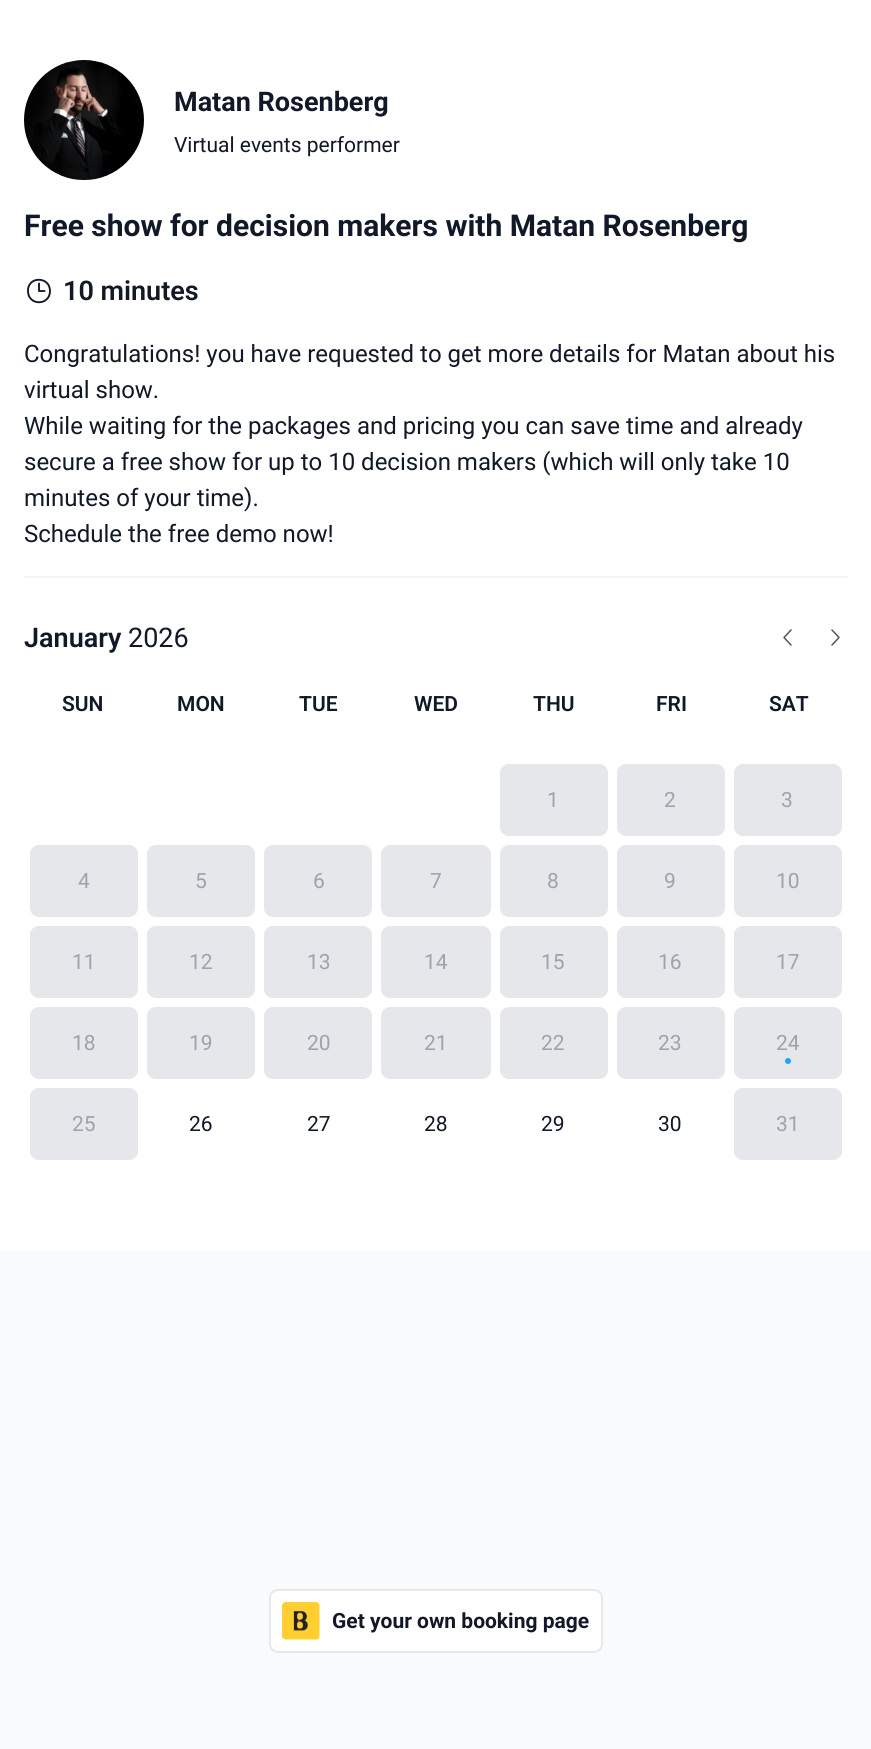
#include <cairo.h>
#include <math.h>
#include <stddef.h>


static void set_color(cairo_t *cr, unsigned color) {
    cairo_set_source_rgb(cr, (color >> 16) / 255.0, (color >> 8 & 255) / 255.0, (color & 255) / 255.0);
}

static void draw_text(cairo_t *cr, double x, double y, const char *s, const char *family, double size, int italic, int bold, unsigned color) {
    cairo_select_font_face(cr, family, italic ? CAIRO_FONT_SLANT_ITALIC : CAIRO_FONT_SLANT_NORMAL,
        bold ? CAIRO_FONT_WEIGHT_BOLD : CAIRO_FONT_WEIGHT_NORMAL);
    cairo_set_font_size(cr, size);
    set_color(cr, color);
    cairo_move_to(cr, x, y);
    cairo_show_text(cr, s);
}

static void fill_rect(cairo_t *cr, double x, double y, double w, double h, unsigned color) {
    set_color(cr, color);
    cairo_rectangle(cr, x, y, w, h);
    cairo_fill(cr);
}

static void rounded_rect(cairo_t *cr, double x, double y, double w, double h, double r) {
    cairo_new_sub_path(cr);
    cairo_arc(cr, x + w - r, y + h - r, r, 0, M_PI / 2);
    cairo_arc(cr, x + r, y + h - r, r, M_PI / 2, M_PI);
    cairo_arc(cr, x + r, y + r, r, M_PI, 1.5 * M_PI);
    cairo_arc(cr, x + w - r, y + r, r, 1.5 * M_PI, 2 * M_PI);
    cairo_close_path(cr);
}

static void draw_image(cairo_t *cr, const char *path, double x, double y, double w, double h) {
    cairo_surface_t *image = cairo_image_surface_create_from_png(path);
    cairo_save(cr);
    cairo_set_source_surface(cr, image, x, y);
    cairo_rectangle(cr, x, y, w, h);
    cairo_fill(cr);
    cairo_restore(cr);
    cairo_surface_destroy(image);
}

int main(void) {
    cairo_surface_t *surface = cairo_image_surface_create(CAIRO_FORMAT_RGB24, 871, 1749);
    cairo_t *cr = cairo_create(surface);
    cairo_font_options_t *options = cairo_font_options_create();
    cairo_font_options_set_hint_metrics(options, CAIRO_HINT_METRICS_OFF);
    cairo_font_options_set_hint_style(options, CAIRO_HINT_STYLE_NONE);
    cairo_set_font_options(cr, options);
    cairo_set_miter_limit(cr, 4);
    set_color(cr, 0xF9FAFB);
    cairo_paint(cr);
    fill_rect(cr, 0, 0, 871, 1250, 0xFFFFFF);
    draw_image(cr, "assets/img1.png", 24, 60, 120, 120);
    draw_text(cr, 174, 111, "Matan Rosenberg", "Roboto", 27, 0, 1, 0x111827);
    draw_text(cr, 174, 152, "Virtual events performer", "Roboto", 21, 0, 0, 0x111827);
    draw_text(cr, 24, 236, "Free show for decision makers with Matan Rosenberg", "Roboto", 30, 0, 1, 0x111827);
    cairo_new_path(cr);
    cairo_move_to(cr, 39, 283.5);
    cairo_line_to(cr, 39, 291);
    cairo_line_to(cr, 44.5, 291);
    cairo_move_to(cr, 50, 291);
    cairo_curve_to(cr, 50, 306, 28, 306, 28, 291);
    cairo_curve_to(cr, 27.5, 276, 50, 276, 50, 291);
    cairo_close_path(cr);
    cairo_set_line_width(cr, 1.9);
    cairo_set_line_cap(cr, CAIRO_LINE_CAP_ROUND);
    cairo_set_line_join(cr, CAIRO_LINE_JOIN_ROUND);
    cairo_stroke(cr);
    draw_text(cr, 63, 300, "10 minutes", "Roboto SemiBold", 27, 0, 0, 0x111827);
    draw_text(cr, 24, 362, "Congratulations! you have requested to get more details for Matan about his", "Roboto", 24, 0, 0, 0x111827);
    draw_text(cr, 24, 398, "virtual show.", "Roboto", 24, 0, 0, 0x111827);
    draw_text(cr, 24, 434, "While waiting for the packages and pricing you can save time and already", "Roboto", 24, 0, 0, 0x111827);
    draw_text(cr, 24, 470, "secure a free show for up to 10 decision makers (which will only take 10", "Roboto", 24, 0, 0, 0x111827);
    draw_text(cr, 24, 506, "minutes of your time).", "Roboto", 24, 0, 0, 0x111827);
    draw_text(cr, 24, 542, "Schedule the free demo now!", "Roboto", 24, 0, 0, 0x111827);
    fill_rect(cr, 24, 576, 824, 2, 0xF3F4F6);
    draw_text(cr, 24, 647, "January", "Roboto SemiBold", 27, 0, 0, 0x111827);
    draw_text(cr, 128, 647, "2026", "Roboto", 27, 0, 0, 0x111827);
    cairo_new_path(cr);
    cairo_move_to(cr, 791, 645);
    cairo_line_to(cr, 784, 637.5);
    cairo_line_to(cr, 791, 630);
    cairo_move_to(cr, 832, 630);
    cairo_line_to(cr, 839, 637.5);
    cairo_line_to(cr, 832, 645);
    set_color(cr, 0x4B5563);
    cairo_set_line_width(cr, 1.5);
    cairo_stroke(cr);
    draw_text(cr, 62, 711, "SUN", "Roboto SemiBold", 21, 0, 0, 0x111827);
    draw_text(cr, 177, 711, "MON", "Roboto SemiBold", 21, 0, 0, 0x111827);
    draw_text(cr, 299, 711, "TUE", "Roboto SemiBold", 21, 0, 0, 0x111827);
    draw_text(cr, 414, 711, "WED", "Roboto SemiBold", 21, 0, 0, 0x111827);
    draw_text(cr, 533, 711, "THU", "Roboto SemiBold", 21, 0, 0, 0x111827);
    draw_text(cr, 656, 711, "FRI", "Roboto SemiBold", 21, 0, 0, 0x111827);
    draw_text(cr, 769, 711, "SAT", "Roboto SemiBold", 21, 0, 0, 0x111827);
    set_color(cr, 0xE5E7EB);
    rounded_rect(cr, 500, 764, 108, 72, 9);
    cairo_fill(cr);
    draw_text(cr, 547, 807, "1", "Roboto", 21, 0, 0, 0x9CA3AF);
    set_color(cr, 0xE5E7EB);
    rounded_rect(cr, 617, 764, 108, 72, 9);
    cairo_fill(cr);
    draw_text(cr, 664, 807, "2", "Roboto", 21, 0, 0, 0x9CA3AF);
    set_color(cr, 0xE5E7EB);
    rounded_rect(cr, 734, 764, 108, 72, 9);
    cairo_fill(cr);
    draw_text(cr, 781, 807, "3", "Roboto", 21, 0, 0, 0x9CA3AF);
    set_color(cr, 0xE5E7EB);
    rounded_rect(cr, 30, 845, 108, 72, 9);
    cairo_fill(cr);
    draw_text(cr, 78, 888, "4", "Roboto", 21, 0, 0, 0x9CA3AF);
    set_color(cr, 0xE5E7EB);
    rounded_rect(cr, 147, 845, 108, 72, 9);
    cairo_fill(cr);
    draw_text(cr, 195, 888, "5", "Roboto", 21, 0, 0, 0x9CA3AF);
    set_color(cr, 0xE5E7EB);
    rounded_rect(cr, 264, 845, 108, 72, 9);
    cairo_fill(cr);
    draw_text(cr, 313, 888, "6", "Roboto", 21, 0, 0, 0x9CA3AF);
    set_color(cr, 0xE5E7EB);
    rounded_rect(cr, 381, 845, 110, 72, 9);
    cairo_fill(cr);
    draw_text(cr, 430, 888, "7", "Roboto", 21, 0, 0, 0x9CA3AF);
    set_color(cr, 0xE5E7EB);
    rounded_rect(cr, 500, 845, 108, 72, 9);
    cairo_fill(cr);
    draw_text(cr, 547, 888, "8", "Roboto", 21, 0, 0, 0x9CA3AF);
    set_color(cr, 0xE5E7EB);
    rounded_rect(cr, 617, 845, 108, 72, 9);
    cairo_fill(cr);
    draw_text(cr, 664, 888, "9", "Roboto", 21, 0, 0, 0x9CA3AF);
    set_color(cr, 0xE5E7EB);
    rounded_rect(cr, 734, 845, 108, 72, 9);
    cairo_fill(cr);
    draw_text(cr, 776, 888, "10", "Roboto", 21, 0, 0, 0x9CA3AF);
    set_color(cr, 0xE5E7EB);
    rounded_rect(cr, 30, 926, 108, 72, 9);
    cairo_fill(cr);
    draw_text(cr, 72, 969, "11", "Roboto", 21, 0, 0, 0x9CA3AF);
    set_color(cr, 0xE5E7EB);
    rounded_rect(cr, 147, 926, 108, 72, 9);
    cairo_fill(cr);
    draw_text(cr, 189, 969, "12", "Roboto", 21, 0, 0, 0x9CA3AF);
    set_color(cr, 0xE5E7EB);
    rounded_rect(cr, 264, 926, 108, 72, 9);
    cairo_fill(cr);
    draw_text(cr, 307, 969, "13", "Roboto", 21, 0, 0, 0x9CA3AF);
    set_color(cr, 0xE5E7EB);
    rounded_rect(cr, 381, 926, 110, 72, 9);
    cairo_fill(cr);
    draw_text(cr, 424, 969, "14", "Roboto", 21, 0, 0, 0x9CA3AF);
    set_color(cr, 0xE5E7EB);
    rounded_rect(cr, 500, 926, 108, 72, 9);
    cairo_fill(cr);
    draw_text(cr, 541, 969, "15", "Roboto", 21, 0, 0, 0x9CA3AF);
    set_color(cr, 0xE5E7EB);
    rounded_rect(cr, 617, 926, 108, 72, 9);
    cairo_fill(cr);
    draw_text(cr, 658, 969, "16", "Roboto", 21, 0, 0, 0x9CA3AF);
    set_color(cr, 0xE5E7EB);
    rounded_rect(cr, 734, 926, 108, 72, 9);
    cairo_fill(cr);
    draw_text(cr, 776, 969, "17", "Roboto", 21, 0, 0, 0x9CA3AF);
    set_color(cr, 0xE5E7EB);
    rounded_rect(cr, 30, 1007, 108, 72, 9);
    cairo_fill(cr);
    draw_text(cr, 72, 1050, "18", "Roboto", 21, 0, 0, 0x9CA3AF);
    set_color(cr, 0xE5E7EB);
    rounded_rect(cr, 147, 1007, 108, 72, 9);
    cairo_fill(cr);
    draw_text(cr, 189, 1050, "19", "Roboto", 21, 0, 0, 0x9CA3AF);
    set_color(cr, 0xE5E7EB);
    rounded_rect(cr, 264, 1007, 108, 72, 9);
    cairo_fill(cr);
    draw_text(cr, 307, 1050, "20", "Roboto", 21, 0, 0, 0x9CA3AF);
    set_color(cr, 0xE5E7EB);
    rounded_rect(cr, 381, 1007, 110, 72, 9);
    cairo_fill(cr);
    draw_text(cr, 424, 1050, "21", "Roboto", 21, 0, 0, 0x9CA3AF);
    set_color(cr, 0xE5E7EB);
    rounded_rect(cr, 500, 1007, 108, 72, 9);
    cairo_fill(cr);
    draw_text(cr, 541, 1050, "22", "Roboto", 21, 0, 0, 0x9CA3AF);
    set_color(cr, 0xE5E7EB);
    rounded_rect(cr, 617, 1007, 108, 72, 9);
    cairo_fill(cr);
    draw_text(cr, 658, 1050, "23", "Roboto", 21, 0, 0, 0x9CA3AF);
    set_color(cr, 0xE5E7EB);
    rounded_rect(cr, 734, 1007, 108, 72, 9);
    cairo_fill(cr);
    draw_text(cr, 776, 1050, "24", "Roboto", 21, 0, 0, 0x9CA3AF);
    set_color(cr, 0x22A3FE);
    cairo_new_path(cr);
    cairo_arc(cr, 788, 1061, 3, 0, 2 * M_PI);
    cairo_fill(cr);
    set_color(cr, 0xE5E7EB);
    rounded_rect(cr, 30, 1088, 108, 72, 9);
    cairo_fill(cr);
    draw_text(cr, 72, 1131, "25", "Roboto", 21, 0, 0, 0x9CA3AF);
    draw_text(cr, 189, 1131, "26", "Roboto", 21, 0, 0, 0x111827);
    draw_text(cr, 307, 1131, "27", "Roboto", 21, 0, 0, 0x111827);
    draw_text(cr, 424, 1131, "28", "Roboto", 21, 0, 0, 0x111827);
    draw_text(cr, 541, 1131, "29", "Roboto", 21, 0, 0, 0x111827);
    draw_text(cr, 658, 1131, "30", "Roboto", 21, 0, 0, 0x111827);
    set_color(cr, 0xE5E7EB);
    rounded_rect(cr, 734, 1088, 108, 72, 9);
    cairo_fill(cr);
    draw_text(cr, 776, 1131, "31", "Roboto", 21, 0, 0, 0x9CA3AF);
    set_color(cr, 0xFFFFFF);
    rounded_rect(cr, 270, 1590, 332, 62, 8);
    cairo_fill_preserve(cr);
    set_color(cr, 0xE5E7EB);
    cairo_set_line_width(cr, 2);
    cairo_set_line_cap(cr, CAIRO_LINE_CAP_BUTT);
    cairo_set_line_join(cr, CAIRO_LINE_JOIN_MITER);
    cairo_stroke(cr);
    draw_image(cr, "assets/img2.png", 282, 1602, 38, 38);
    draw_text(cr, 332, 1628, "Get your own booking page", "Roboto", 21, 0, 1, 0x111827);
    cairo_surface_write_to_png(surface, "output.png");
    cairo_font_options_destroy(options);
    cairo_destroy(cr);
    cairo_surface_destroy(surface);
    return 0;
}
